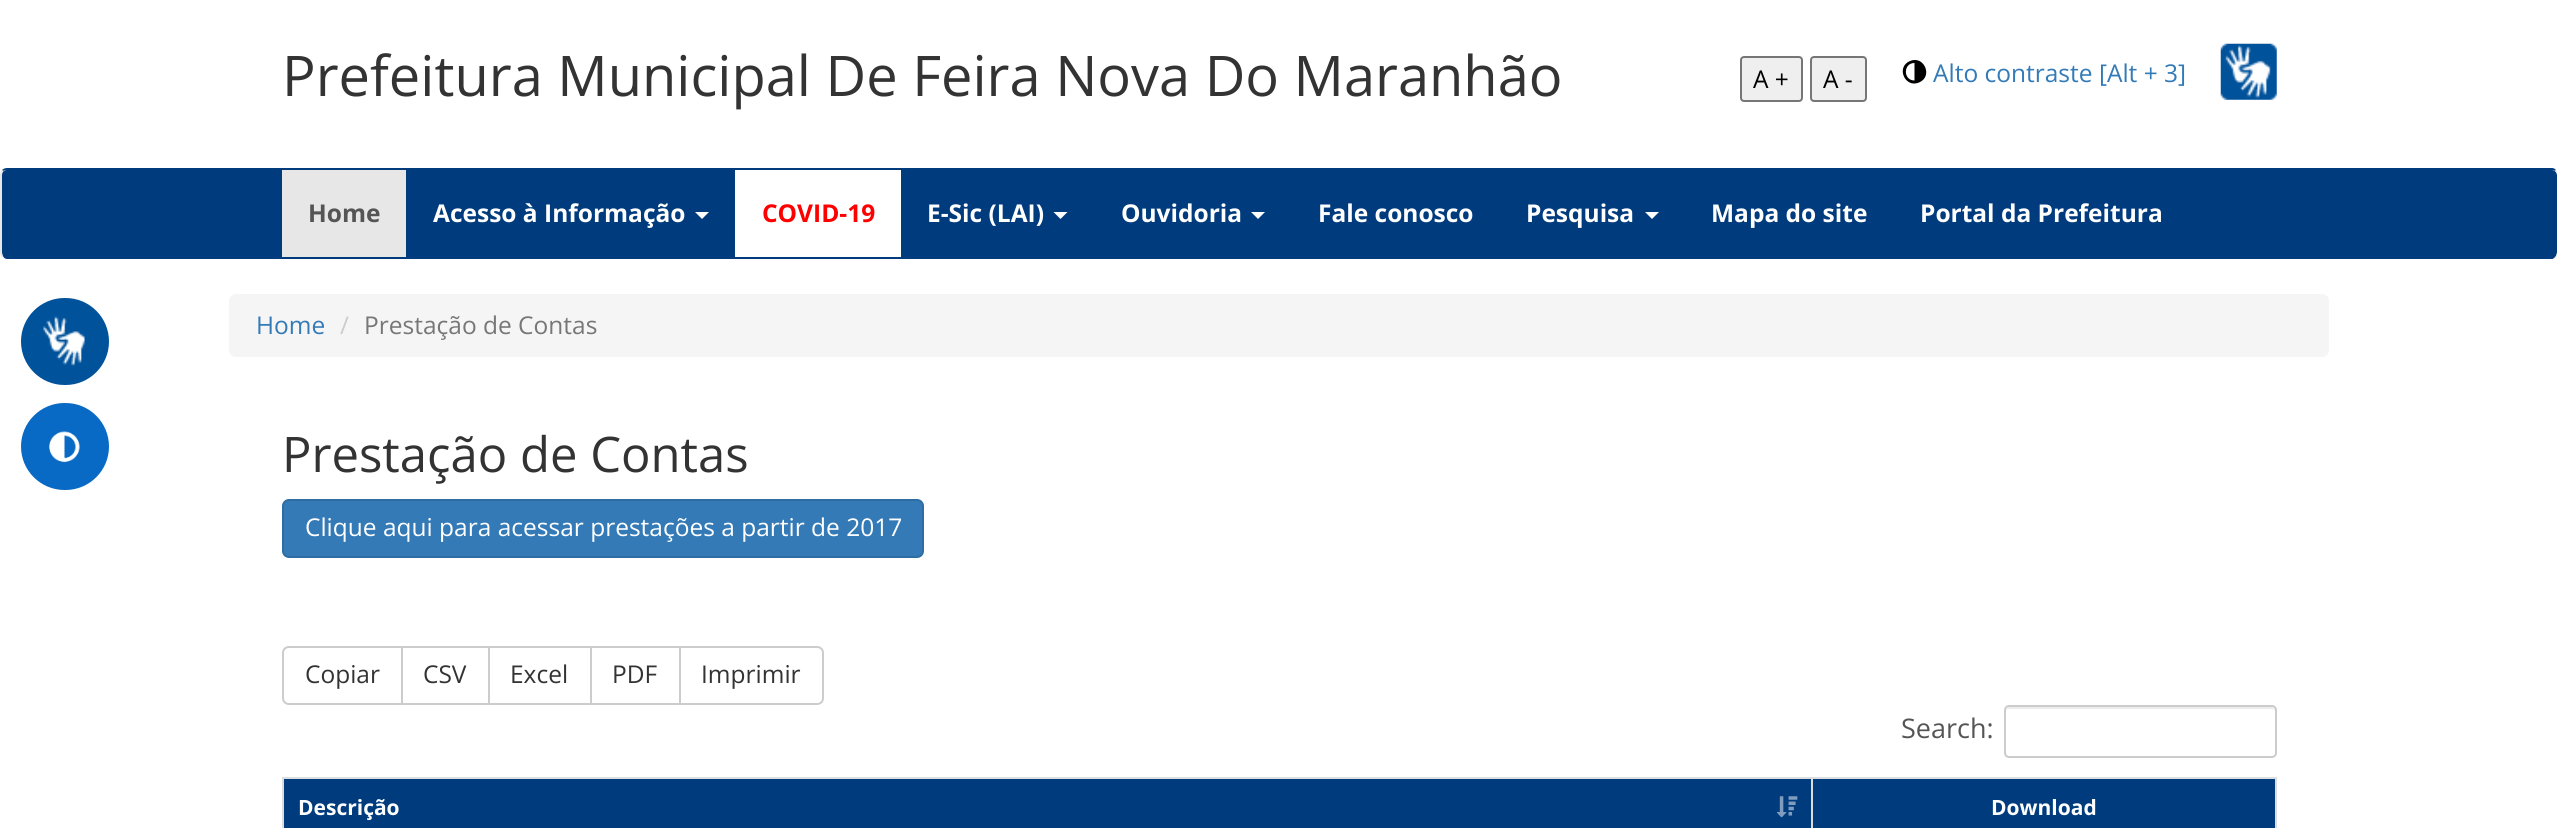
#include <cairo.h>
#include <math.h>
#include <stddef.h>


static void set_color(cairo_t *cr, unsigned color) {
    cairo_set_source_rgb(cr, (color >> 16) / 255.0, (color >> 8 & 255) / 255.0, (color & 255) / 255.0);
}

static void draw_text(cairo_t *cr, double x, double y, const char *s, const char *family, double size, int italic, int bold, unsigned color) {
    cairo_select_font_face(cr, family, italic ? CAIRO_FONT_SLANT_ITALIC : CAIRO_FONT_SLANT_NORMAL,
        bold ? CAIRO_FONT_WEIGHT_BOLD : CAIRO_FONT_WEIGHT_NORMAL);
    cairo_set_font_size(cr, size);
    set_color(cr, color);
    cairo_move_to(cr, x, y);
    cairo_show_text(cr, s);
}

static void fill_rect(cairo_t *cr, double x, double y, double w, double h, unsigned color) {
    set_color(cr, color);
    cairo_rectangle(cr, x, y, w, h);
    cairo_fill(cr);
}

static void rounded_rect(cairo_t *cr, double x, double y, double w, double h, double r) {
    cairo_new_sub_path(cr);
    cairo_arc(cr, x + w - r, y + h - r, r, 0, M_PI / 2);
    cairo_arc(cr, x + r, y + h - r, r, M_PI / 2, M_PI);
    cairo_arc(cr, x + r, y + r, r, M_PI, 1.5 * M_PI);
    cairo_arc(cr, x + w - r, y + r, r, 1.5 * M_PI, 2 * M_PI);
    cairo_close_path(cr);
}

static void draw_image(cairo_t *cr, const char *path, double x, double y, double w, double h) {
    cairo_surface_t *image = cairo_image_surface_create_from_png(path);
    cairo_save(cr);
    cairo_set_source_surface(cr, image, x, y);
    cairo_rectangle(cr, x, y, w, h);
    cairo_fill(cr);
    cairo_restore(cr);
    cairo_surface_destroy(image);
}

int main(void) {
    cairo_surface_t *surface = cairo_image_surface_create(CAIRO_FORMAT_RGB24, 2557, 828);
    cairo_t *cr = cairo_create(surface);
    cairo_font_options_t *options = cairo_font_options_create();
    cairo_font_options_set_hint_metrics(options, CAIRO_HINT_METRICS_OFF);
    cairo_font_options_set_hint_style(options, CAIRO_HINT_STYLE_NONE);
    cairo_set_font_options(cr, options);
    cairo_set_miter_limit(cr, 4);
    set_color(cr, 0xFFFFFF);
    cairo_paint(cr);
    draw_text(cr, 282, 96, "Prefeitura Municipal De Feira Nova Do Maranhão", "Open Sans", 56, 0, 0, 0x333333);
    set_color(cr, 0xEFEFEF);
    rounded_rect(cr, 1741, 57, 61, 44, 3);
    cairo_fill_preserve(cr);
    set_color(cr, 0x767676);
    cairo_stroke(cr);
    draw_text(cr, 1753, 88, "A +", "Open Sans", 24.5, 0, 0, 0x000000);
    set_color(cr, 0xEFEFEF);
    rounded_rect(cr, 1811, 57, 55, 44, 3);
    cairo_fill_preserve(cr);
    set_color(cr, 0x767676);
    cairo_stroke(cr);
    draw_text(cr, 1823, 88, "A -", "Open Sans", 24.5, 0, 0, 0x000000);
    cairo_new_path(cr);
    cairo_move_to(cr, 1910, 61);
    cairo_curve_to(cr, 1924, 55, 1933.5, 76.5, 1919, 82.5);
    cairo_curve_to(cr, 1905, 88.5, 1895.5, 67, 1910, 61);
    cairo_close_path(cr);
    cairo_move_to(cr, 1914.5, 80.5);
    cairo_line_to(cr, 1914.5, 63);
    cairo_curve_to(cr, 1903, 63, 1903, 80.5, 1914.5, 80.5);
    cairo_close_path(cr);
    cairo_fill(cr);
    draw_text(cr, 1933, 82, "Alto contraste [Alt + 3]", "Open Sans", 24.5, 0, 0, 0x337AB7);
    draw_image(cr, "assets/img1.png", 2220, 43, 57, 57);
    set_color(cr, 0x003B7D);
    cairo_new_path(cr);
    cairo_move_to(cr, 7, 170);
    cairo_line_to(cr, 2552, 170);
    cairo_curve_to(cr, 2554, 170, 2557, 172, 2557, 175);
    cairo_line_to(cr, 2557, 252);
    cairo_curve_to(cr, 2557, 256, 2554, 259, 2552, 259);
    cairo_line_to(cr, 7, 259);
    cairo_curve_to(cr, 4, 259, 2, 256, 2, 252);
    cairo_line_to(cr, 2, 175);
    cairo_curve_to(cr, 2, 172, 4, 170, 7, 170);
    cairo_close_path(cr);
    cairo_fill(cr);
    cairo_new_path(cr);
    cairo_move_to(cr, 7, 168);
    cairo_curve_to(cr, 5, 168, 3, 169, 2, 170);
    cairo_line_to(cr, 3, 171);
    cairo_curve_to(cr, 4, 170, 6, 170, 7, 170);
    cairo_line_to(cr, 2552, 170);
    cairo_curve_to(cr, 2553, 170, 2554, 170, 2555, 171);
    cairo_line_to(cr, 2556, 170);
    cairo_curve_to(cr, 2555, 169, 2554, 168, 2552, 168);
    cairo_close_path(cr);
    cairo_fill(cr);
    set_color(cr, 0xE7E7E7);
    cairo_new_path(cr);
    cairo_move_to(cr, 2556, 170);
    cairo_curve_to(cr, 2557, 171, 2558, 173, 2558, 175);
    cairo_line_to(cr, 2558, 252);
    cairo_curve_to(cr, 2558, 256, 2555, 259, 2552, 259);
    cairo_curve_to(cr, 2554, 259, 2557, 256, 2557, 252);
    cairo_line_to(cr, 2557, 175);
    cairo_curve_to(cr, 2557, 173, 2556, 172, 2555, 171);
    cairo_close_path(cr);
    cairo_fill(cr);
    cairo_new_path(cr);
    cairo_move_to(cr, 0, 175);
    cairo_line_to(cr, 0, 252);
    cairo_curve_to(cr, 0, 256, 3, 259, 7, 259);
    cairo_curve_to(cr, 4, 259, 2, 256, 2, 252);
    cairo_line_to(cr, 2, 175);
    cairo_curve_to(cr, 2, 174, 2, 172, 3, 171);
    cairo_line_to(cr, 2, 170);
    cairo_curve_to(cr, 1, 171, 0, 173, 0, 175);
    cairo_close_path(cr);
    cairo_fill(cr);
    fill_rect(cr, 282, 170, 124, 87, 0xE7E7E7);
    draw_text(cr, 308, 222, "Home", "Open Sans", 24.5, 0, 1, 0x555555);
    draw_text(cr, 433, 222, "Acesso à Informação", "Open Sans", 24.5, 0, 1, 0xFFFFFF);
    cairo_new_path(cr);
    cairo_move_to(cr, 695, 212);
    cairo_line_to(cr, 709, 212);
    cairo_line_to(cr, 702, 219);
    cairo_close_path(cr);
    cairo_fill(cr);
    fill_rect(cr, 735, 170, 166, 87, 0xFFFFFF);
    draw_text(cr, 762, 222, "COVID-19", "Open Sans", 24.5, 0, 1, 0xFF0000);
    draw_text(cr, 927, 222, "E-Sic (LAI)", "Open Sans", 24.5, 0, 1, 0xFFFFFF);
    cairo_new_path(cr);
    cairo_move_to(cr, 1053.5, 212);
    cairo_line_to(cr, 1067.5, 212);
    cairo_line_to(cr, 1060.5, 219);
    cairo_close_path(cr);
    cairo_fill(cr);
    draw_text(cr, 1121, 222, "Ouvidoria", "Open Sans", 24.5, 0, 1, 0xFFFFFF);
    cairo_new_path(cr);
    cairo_move_to(cr, 1251, 212);
    cairo_line_to(cr, 1265, 212);
    cairo_line_to(cr, 1258, 219);
    cairo_close_path(cr);
    cairo_fill(cr);
    draw_text(cr, 1318, 222, "Fale conosco", "Open Sans", 24.5, 0, 1, 0xFFFFFF);
    draw_text(cr, 1526, 222, "Pesquisa", "Open Sans", 24.5, 0, 1, 0xFFFFFF);
    cairo_new_path(cr);
    cairo_move_to(cr, 1645, 212);
    cairo_line_to(cr, 1659, 212);
    cairo_line_to(cr, 1652, 219);
    cairo_close_path(cr);
    cairo_fill(cr);
    draw_text(cr, 1711, 222, "Mapa do site", "Open Sans", 24.5, 0, 1, 0xFFFFFF);
    draw_text(cr, 1920, 222, "Portal da Prefeitura", "Open Sans", 24.5, 0, 1, 0xFFFFFF);
    set_color(cr, 0x00529B);
    rounded_rect(cr, 21, 298, 88, 87, 43.5);
    cairo_fill(cr);
    draw_image(cr, "assets/img2.png", 43, 316, 42, 50);
    set_color(cr, 0x086AC4);
    rounded_rect(cr, 21, 403, 88, 87, 43.5);
    cairo_fill(cr);
    draw_image(cr, "assets/img3.png", 49, 431, 31, 32);
    set_color(cr, 0xF5F5F5);
    rounded_rect(cr, 229, 294, 2100, 63, 7);
    cairo_fill(cr);
    draw_text(cr, 256, 334, "Home", "Open Sans", 24.5, 0, 0, 0x337AB7);
    draw_text(cr, 340, 334, "/", "Open Sans", 24.5, 0, 0, 0xCCCCCC);
    draw_text(cr, 364, 334, "Prestação de Contas", "Open Sans", 24.5, 0, 0, 0x777777);
    draw_text(cr, 282, 472, "Prestação de Contas", "Open Sans", 49, 0, 0, 0x333333);
    set_color(cr, 0x337AB7);
    rounded_rect(cr, 283, 500, 640, 57, 6);
    cairo_fill_preserve(cr);
    set_color(cr, 0x2E6DA4);
    cairo_stroke(cr);
    draw_text(cr, 305, 536, "Clique aqui para acessar prestações a partir de 2017", "Open Sans", 24.5, 0, 0, 0xFFFFFF);
    cairo_new_path(cr);
    cairo_move_to(cr, 289, 647);
    cairo_line_to(cr, 402, 647);
    cairo_line_to(cr, 402, 704);
    cairo_line_to(cr, 289, 704);
    cairo_curve_to(cr, 285.5, 704, 283, 701.5, 283, 698);
    cairo_line_to(cr, 283, 653);
    cairo_curve_to(cr, 283, 649.5, 285.5, 647, 289, 647);
    cairo_close_path(cr);
    set_color(cr, 0xCCCCCC);
    cairo_stroke(cr);
    draw_text(cr, 305, 683, "Copiar", "Open Sans", 24.5, 0, 0, 0x333333);
    cairo_rectangle(cr, 402, 647, 87, 57);
    set_color(cr, 0xCCCCCC);
    cairo_stroke(cr);
    draw_text(cr, 423, 683, "CSV", "Open Sans", 24.5, 0, 0, 0x333333);
    cairo_rectangle(cr, 489, 647, 102, 57);
    set_color(cr, 0xCCCCCC);
    cairo_stroke(cr);
    draw_text(cr, 510, 683, "Excel", "Open Sans", 24.5, 0, 0, 0x333333);
    cairo_rectangle(cr, 591, 647, 89, 57);
    set_color(cr, 0xCCCCCC);
    cairo_stroke(cr);
    draw_text(cr, 612, 683, "PDF", "Open Sans", 24.5, 0, 0, 0x333333);
    set_color(cr, 0xFFFFFF);
    cairo_new_path(cr);
    cairo_move_to(cr, 680, 647);
    cairo_line_to(cr, 817, 647);
    cairo_curve_to(cr, 820.5, 647, 823, 649.5, 823, 653);
    cairo_line_to(cr, 823, 698);
    cairo_curve_to(cr, 823, 701.5, 820.5, 704, 817, 704);
    cairo_line_to(cr, 680, 704);
    cairo_close_path(cr);
    cairo_fill_preserve(cr);
    set_color(cr, 0xCCCCCC);
    cairo_stroke(cr);
    draw_text(cr, 701, 683, "Imprimir", "Open Sans", 24.5, 0, 0, 0x333333);
    draw_text(cr, 1901, 738, "Search:", "Open Sans", 27, 0, 0, 0x555555);
    set_color(cr, 0xECECEC);
    cairo_new_path(cr);
    cairo_move_to(cr, 2009, 709);
    cairo_line_to(cr, 2272, 709);
    cairo_curve_to(cr, 2273, 709, 2275, 710, 2275, 712);
    cairo_curve_to(cr, 2275, 709, 2274, 707, 2271, 707);
    cairo_line_to(cr, 2010, 707);
    cairo_curve_to(cr, 2007, 707, 2006, 709, 2006, 712);
    cairo_curve_to(cr, 2006, 710, 2007, 709, 2009, 709);
    cairo_close_path(cr);
    cairo_fill(cr);
    rounded_rect(cr, 2005, 706, 271, 51, 4);
    set_color(cr, 0xCCCCCC);
    cairo_stroke(cr);
    cairo_rectangle(cr, 283, 778, 1993, 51);
    set_color(cr, 0xDDDDDD);
    cairo_stroke(cr);
    fill_rect(cr, 284, 779, 1991, 49, 0x003B7D);
    fill_rect(cr, 1811, 779, 2, 49, 0xDDDDDD);
    draw_text(cr, 298, 815, "Descrição", "Open Sans", 21, 0, 1, 0xFFFFFF);
    draw_image(cr, "assets/img4.png", 1776, 796, 22, 22);
    draw_text(cr, 1991, 815, "Download", "Open Sans", 21, 0, 1, 0xFFFFFF);
    cairo_surface_write_to_png(surface, "output.png");
    cairo_font_options_destroy(options);
    cairo_destroy(cr);
    cairo_surface_destroy(surface);
    return 0;
}
